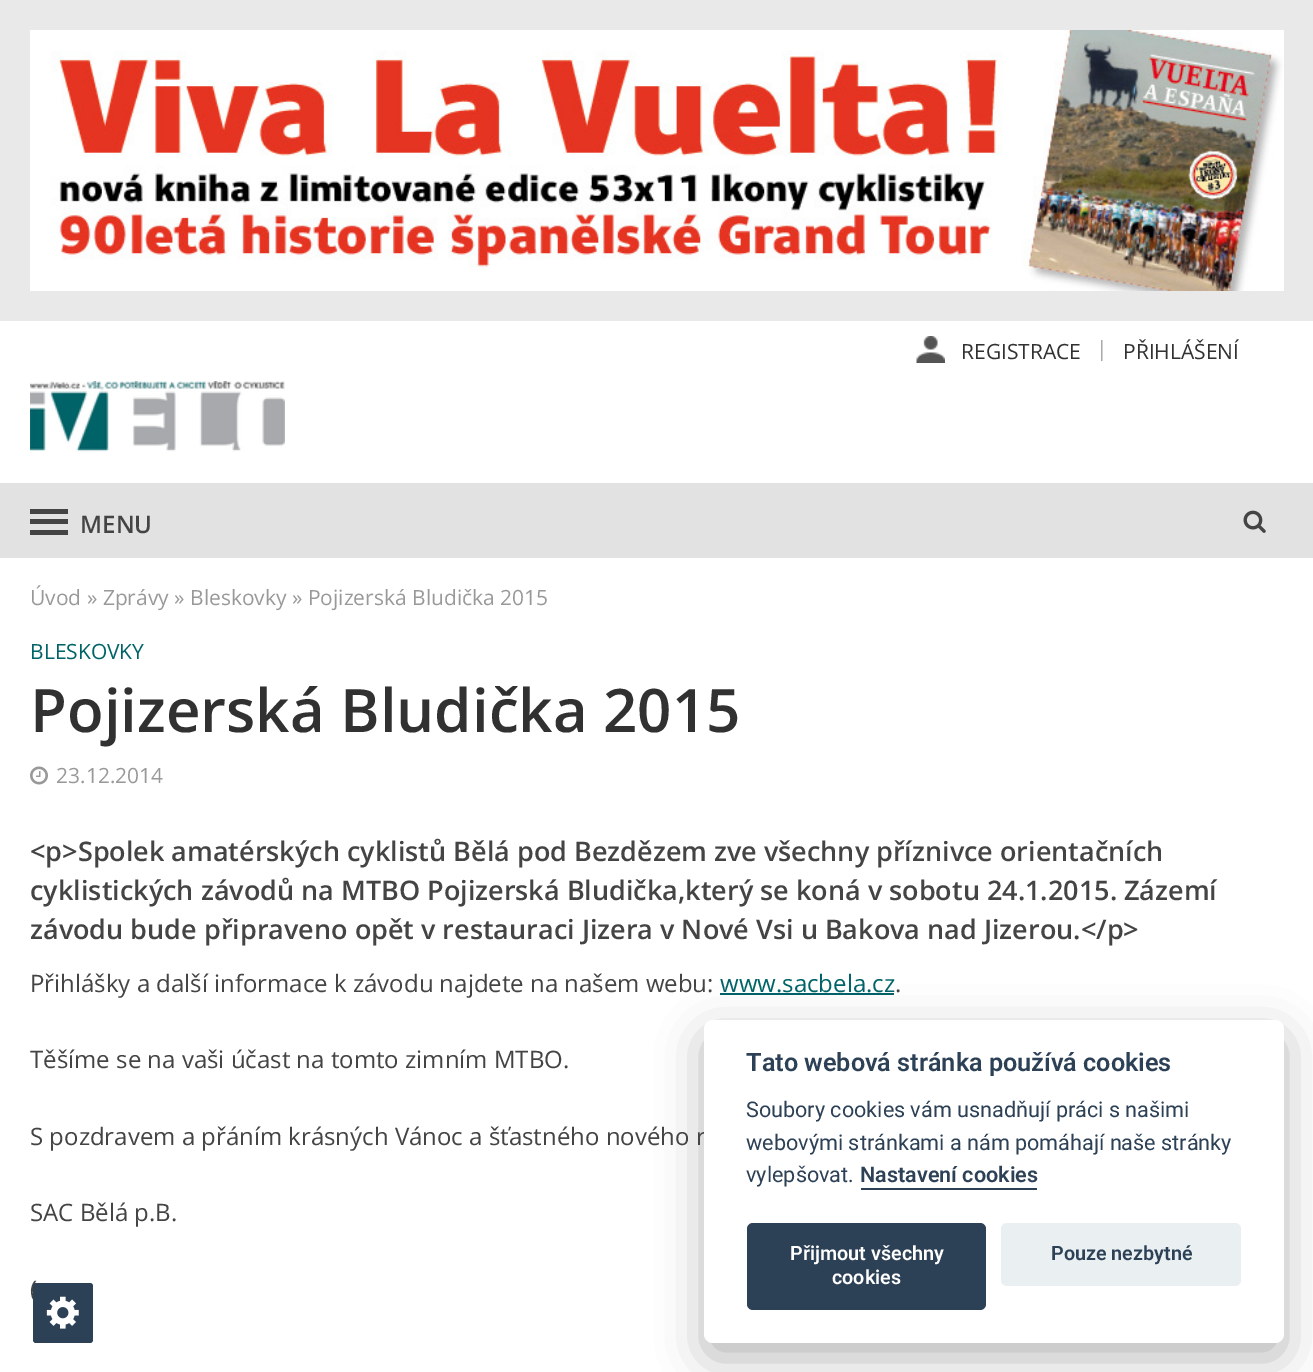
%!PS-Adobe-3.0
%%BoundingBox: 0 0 1313 1372
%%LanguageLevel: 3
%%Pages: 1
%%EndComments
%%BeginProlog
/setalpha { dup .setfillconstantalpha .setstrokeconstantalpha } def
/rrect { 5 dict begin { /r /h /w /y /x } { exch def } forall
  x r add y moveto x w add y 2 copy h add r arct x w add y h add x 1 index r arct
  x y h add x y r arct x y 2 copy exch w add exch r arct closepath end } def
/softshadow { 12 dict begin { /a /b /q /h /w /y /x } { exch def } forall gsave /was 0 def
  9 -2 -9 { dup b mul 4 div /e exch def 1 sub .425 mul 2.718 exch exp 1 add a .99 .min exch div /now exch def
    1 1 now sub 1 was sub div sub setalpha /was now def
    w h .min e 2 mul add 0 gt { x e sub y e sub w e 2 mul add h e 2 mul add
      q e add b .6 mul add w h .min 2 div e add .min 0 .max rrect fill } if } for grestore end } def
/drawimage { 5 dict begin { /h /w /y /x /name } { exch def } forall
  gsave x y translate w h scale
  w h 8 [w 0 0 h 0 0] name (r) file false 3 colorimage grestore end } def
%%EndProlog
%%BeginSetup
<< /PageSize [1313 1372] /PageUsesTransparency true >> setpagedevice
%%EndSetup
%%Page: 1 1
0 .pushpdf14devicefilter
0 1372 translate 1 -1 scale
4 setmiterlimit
0.914 setgray
0 0 1313 1372 rectfill
(images/1.raw) 30 30 1254 261 drawimage
1 setgray
0 321 1313 162 rectfill
(images/2.raw) 916 336 29 27 drawimage
(images/3.raw) 30 381 255 71 drawimage
0.886 setgray
0 483 1313 75 rectfill
0.267 setgray
30 509 38 5 rectfill
30 519 38 5 rectfill
30 530 38 5 rectfill
(images/4.raw) 1243 510 23 23 drawimage
1 setgray
0 558 1313 814 rectfill
(images/5.raw) 30 766 18 19 drawimage
0 0.388 0.404 setrgbcolor
720 993 174 2 rectfill
0.008 0.008 0.012 setrgbcolor
704 1035 580 323 9 22.5 0.28 softshadow
/OpenSans-Regular [21 0 0 -21 0 0] selectfont
0.196 0.192 0.192 setrgbcolor
961 359 moveto (REGISTRACE) show
0.667 setgray
1096 356 moveto (|) show
0.196 0.192 0.192 setrgbcolor
1123 359 moveto (PŘIHLÁŠENÍ) show
/OpenSans-SemiBold [24 0 0 -24 0 0] selectfont
0.267 setgray
80 533 moveto (MENU) show
/OpenSans-Regular [21 0 0 -21 0 0] selectfont
0.6 setgray
30 605 moveto (Úvod » Zprávy » Bleskovky » Pojizerská Bludička 2015) show
0 0.388 0.404 setrgbcolor
30 659 moveto (BLESKOVKY) show
/OpenSans-SemiBold [60 0 0 -60 0 0] selectfont
0.196 0.192 0.192 setrgbcolor
30 732 moveto (Pojizerská Bludička 2015) show
/OpenSans-Regular [21 0 0 -21 0 0] selectfont
0.6 setgray
56 783 moveto (23.12.2014) show
/OpenSans-SemiBold [27 0 0 -27 0 0] selectfont
0.267 setgray
30 861 moveto (<p>Spolek amatérských cyklistů Bělá pod Bezdězem zve všechny příznivce orientačních) show
30 900 moveto (cyklistických závodů na MTBO Pojizerská Bludička,který se koná v sobotu 24.1.2015. Zázemí) show
30 939 moveto (závodu bude připraveno opět v restauraci Jizera v Nové Vsi u Bakova nad Jizerou.</p>) show
/OpenSans-Regular [24 0 0 -24 0 0] selectfont
30 992 moveto (Přihlášky a další informace k závodu najdete na našem webu:) show
0 0.388 0.404 setrgbcolor
720 992 moveto (www.sacbela.cz) show
0.267 setgray
895 992 moveto (.) show
30 1068 moveto (Těšíme se na vaši účast na tomto zimním MTBO.) show
30 1145 moveto (S pozdravem a přáním krásných Vánoc a šťastného nového r) show
30 1221 moveto (SAC Bělá p.B.) show
30 1298 moveto (\() show
1 setgray
704 1020 580 323 9 rrect fill
/Roboto-SemiBold [25.25 0 0 -25.25 0 0] selectfont
0.176 0.255 0.337 setrgbcolor
746 1071 moveto (Tato webová stránka používá cookies) show
/Roboto-Regular [21.6 0 0 -21.6 0 0] selectfont
746 1117 moveto (Soubory cookies vám usnadňují práci s našimi) show
746 1150 moveto (webovými stránkami a nám pomáhají naše stránky) show
746 1182 moveto (vylepšovat.) show
/Roboto-SemiBold [21.6 0 0 -21.6 0 0] selectfont
860 1182 moveto (Nastavení cookies) show
861 1188 176 2 rectfill
747 1223 239 87 6 rrect fill
/Roboto-SemiBold [19.75 0 0 -19.75 0 0] selectfont
1 setgray
790 1260 moveto (Přijmout všechny) show
832 1284 moveto (cookies) show
0.918 0.937 0.949 setrgbcolor
1001 1223 240 63 6 rrect fill
0.176 0.255 0.337 setrgbcolor
1051 1260 moveto (Pouze nezbytné) show
33 1283 60 60 3 rrect fill
(images/6.raw) 46 1296 33 33 drawimage
.poppdf14devicefilter showpage
%%EOF
